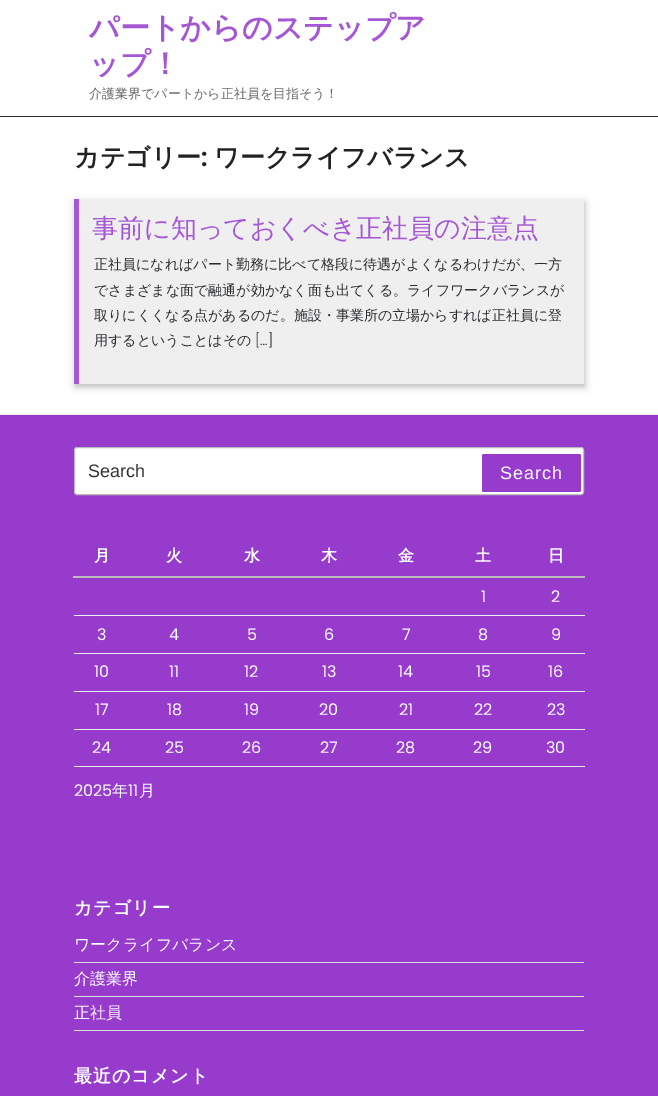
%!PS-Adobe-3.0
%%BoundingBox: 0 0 658 1096
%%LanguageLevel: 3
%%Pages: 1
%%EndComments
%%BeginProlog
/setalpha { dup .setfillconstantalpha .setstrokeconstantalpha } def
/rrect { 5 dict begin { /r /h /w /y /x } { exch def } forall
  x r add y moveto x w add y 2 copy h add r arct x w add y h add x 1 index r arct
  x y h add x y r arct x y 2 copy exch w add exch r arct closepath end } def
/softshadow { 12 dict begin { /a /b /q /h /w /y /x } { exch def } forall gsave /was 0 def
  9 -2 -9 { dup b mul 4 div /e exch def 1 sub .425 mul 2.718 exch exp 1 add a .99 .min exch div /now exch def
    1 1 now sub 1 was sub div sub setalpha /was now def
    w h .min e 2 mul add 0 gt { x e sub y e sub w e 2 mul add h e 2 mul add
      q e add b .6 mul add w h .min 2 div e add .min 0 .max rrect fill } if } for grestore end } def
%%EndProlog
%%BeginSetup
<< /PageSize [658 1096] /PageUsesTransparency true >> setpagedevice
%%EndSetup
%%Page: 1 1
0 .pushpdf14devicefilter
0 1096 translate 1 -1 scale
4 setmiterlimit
1 setgray
0 0 658 1096 rectfill
0.161 0.169 0.173 setrgbcolor
0 116 658 1 rectfill
0.733 setgray
75 202 510 185 0 3.5 1 softshadow
0.937 setgray
79 199 505 185 rectfill
0.647 0.337 0.831 setrgbcolor
74 199 5 185 rectfill
0.592 0.231 0.804 setrgbcolor
0 415 658 681 rectfill
0.933 setgray
0 414 658 1 rectfill
1 setgray
74.5 447.5 509 47 2.5 rrect gsave fill grestore
0.733 setgray
stroke
0.592 0.231 0.804 setrgbcolor
482 454 99 38 2 rrect fill
0.733 setgray
73 576 512 2 rectfill
0.933 setgray
74 615 511 1 rectfill
74 653 511 1 rectfill
74 691 511 1 rectfill
74 729 511 1 rectfill
74 766 511 1 rectfill
0.867 setgray
74 962 510 1 rectfill
74 996 510 1 rectfill
74 1030 510 1 rectfill
/WenQuanYiZenHei-Bold [30 0 0 -30 0 0] selectfont
0.647 0.337 0.831 setrgbcolor
89 38 moveto (パートからのステップア) show
89 74 moveto (ップ！) show
/WenQuanYiZenHei-Medium [13 0 0 -13 0 0] selectfont
0.4 setgray
89 98 moveto (介護業界でパートから正社員を目指そう！) show
/WenQuanYiZenHei-Bold [25 0 0 -25 0 0] selectfont
0.133 setgray
74 166 moveto (カテゴリー) show
/Poppins-SemiBold [25 0 0 -25 0 0] selectfont
201 166 moveto (:) show
/WenQuanYiZenHei-Bold [25 0 0 -25 0 0] selectfont
214 166 moveto (ワークライフバランス) show
/WenQuanYiZenHei-Medium [26 0 0 -26 0 0] selectfont
0.647 0.337 0.831 setrgbcolor
92 237 moveto (事前に知っておくべき正社員の注意点) show
/WenQuanYiZenHei-Medium [14 0 0 -14 0 0] selectfont
0.161 0.169 0.173 setrgbcolor
94 269 moveto (正社員になればパート勤務に比べて格段に待遇がよくなるわけだが、一方) show
94 295 moveto (でさまざまな面で融通が効かなく面も出てくる。ライフワークバランスが) show
94 320 moveto (取りにくくなる点があるのだ。施設・事業所の立場からすれば正社員に登) show
94 345 moveto (用するということはその) show
/Poppins-Light [14 0 0 -14 0 0] selectfont
255 345 moveto ([…]) show
/LiberationSans-Regular [18 0 0 -18 0 0] selectfont
0.2 setgray
88 477 moveto (Search) show
1 setgray
500 479 moveto 1 0 (Search) ashow
/WenQuanYiZenHei-Bold [16 0 0 -16 0 0] selectfont
94 561 moveto (月) show
166 561 moveto (火) show
244 561 moveto (水) show
321 561 moveto (木) show
398 561 moveto (金) show
475 561 moveto (土) show
548 561 moveto (日) show
/Poppins-Regular [16 0 0 -16 0 0] selectfont
481 602 moveto (1) show
551 602 moveto (2) show
97 640 moveto (3) show
169 640 moveto (4) show
247 640 moveto (5) show
324 640 moveto (6) show
402 640 moveto (7) show
478 640 moveto (8) show
551 640 moveto (9) show
94 677 moveto (10) show
169 677 moveto (11) show
244 677 moveto (12) show
322 677 moveto (13) show
398 677 moveto (14) show
476 677 moveto (15) show
548 677 moveto (16) show
95 715 moveto (17) show
167 715 moveto (18) show
244 715 moveto (19) show
319 715 moveto (20) show
399 715 moveto (21) show
474 715 moveto (22) show
547 715 moveto (23) show
92 753 moveto (24) show
165 753 moveto (25) show
242 753 moveto (26) show
320 753 moveto (27) show
396 753 moveto (28) show
473 753 moveto (29) show
546 753 moveto (30) show
74 796 moveto (2025) show
/WenQuanYiZenHei-Medium [16 0 0 -16 0 0] selectfont
112 796 moveto (年) show
/Poppins-Regular [16 0 0 -16 0 0] selectfont
128 796 moveto (11) show
/WenQuanYiZenHei-Medium [16 0 0 -16 0 0] selectfont
139 796 moveto (月) show
/WenQuanYiZenHei-Bold [18 0 0 -18 0 0] selectfont
74 914 moveto 1 0 (カテゴリー) ashow
/WenQuanYiZenHei-Medium [16 0 0 -16 0 0] selectfont
74 950 moveto (ワークライフバランス) show
74 984 moveto (介護業界) show
74 1018 moveto (正社員) show
/WenQuanYiZenHei-Bold [18 0 0 -18 0 0] selectfont
74 1082 moveto 1 0 (最近のコメント) ashow
.poppdf14devicefilter showpage
%%EOF
